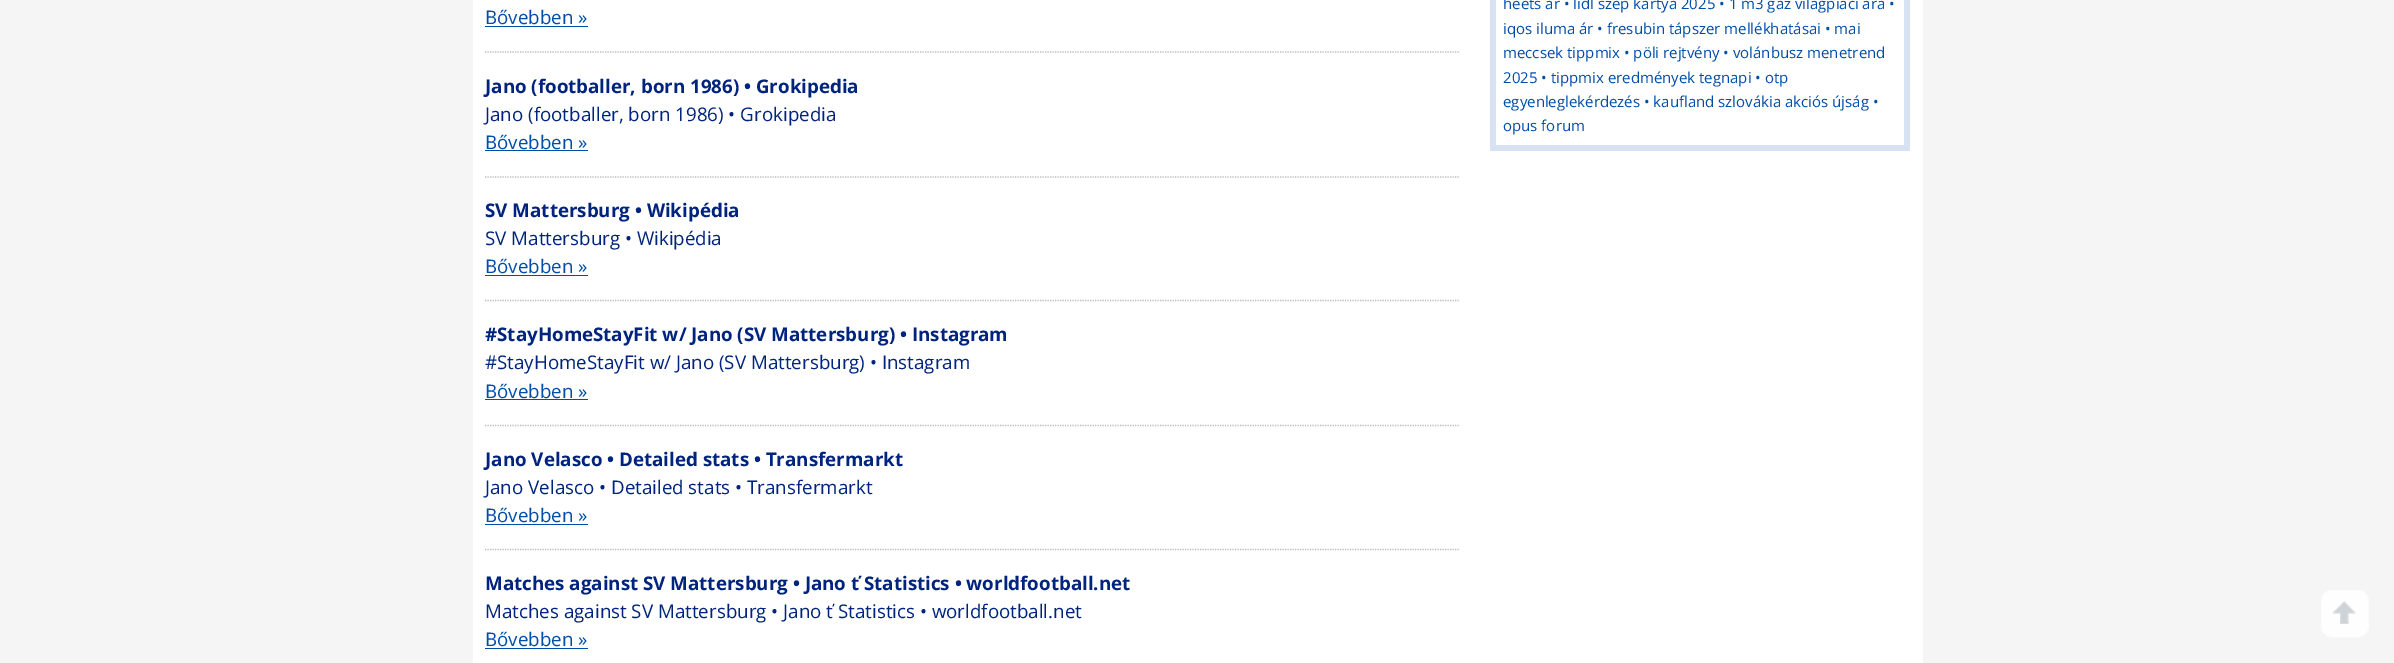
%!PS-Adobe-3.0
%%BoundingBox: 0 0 2394 663
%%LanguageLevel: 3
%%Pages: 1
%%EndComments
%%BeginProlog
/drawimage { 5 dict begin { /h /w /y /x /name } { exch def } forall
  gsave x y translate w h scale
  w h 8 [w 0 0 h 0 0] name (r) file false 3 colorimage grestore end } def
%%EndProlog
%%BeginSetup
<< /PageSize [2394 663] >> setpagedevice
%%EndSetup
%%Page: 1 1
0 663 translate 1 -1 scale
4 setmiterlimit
0.961 setgray
0 0 2394 663 rectfill
1 setgray
473 0 1450 663 rectfill
0 0.302 0.659 setrgbcolor
485 26 103 1 rectfill
0.733 setgray
1.2 setlinewidth
[1.25 1.25] 0 setdash
newpath 485 52 moveto 1460 52 lineto stroke
0 0.302 0.659 setrgbcolor
485 150 103 1 rectfill
0.733 setgray
newpath 485 177 moveto 1460 177 lineto stroke
0 0.302 0.659 setrgbcolor
485 275 103 1 rectfill
0.733 setgray
newpath 485 300.5 moveto 1460 300.5 lineto stroke
0 0.302 0.659 setrgbcolor
485 399 103 1 rectfill
0.733 setgray
newpath 485 425.5 moveto 1460 425.5 lineto stroke
0 0.302 0.659 setrgbcolor
485 524 103 1 rectfill
0.733 setgray
newpath 485 549.5 moveto 1460 549.5 lineto stroke
0 0.302 0.659 setrgbcolor
485 648 103 1 rectfill
0.843 0.89 0.949 setrgbcolor
1490 0 420 151 rectfill
1 setgray
1496 0 408 145 rectfill
(images/1.raw) 2321 590 48 48 drawimage
/OpenSans-Regular [18.75 0 0 -18.75 0 0] selectfont
0 0.302 0.659 setrgbcolor
485 24 moveto (Bővebben ») show
/OpenSans-Bold [18.75 0 0 -18.75 0 0] selectfont
0 0.141 0.49 setrgbcolor
485 93 moveto (Jano \(footballer, born 1986\) • Grokipedia) show
/OpenSans-Regular [18.75 0 0 -18.75 0 0] selectfont
485 121 moveto (Jano \(footballer, born 1986\) • Grokipedia) show
0 0.302 0.659 setrgbcolor
485 149 moveto (Bővebben ») show
/OpenSans-Bold [18.75 0 0 -18.75 0 0] selectfont
0 0.141 0.49 setrgbcolor
485 217 moveto (SV Mattersburg • Wikipédia) show
/OpenSans-Regular [18.75 0 0 -18.75 0 0] selectfont
485 245 moveto (SV Mattersburg • Wikipédia) show
0 0.302 0.659 setrgbcolor
485 273 moveto (Bővebben ») show
/OpenSans-Bold [18.75 0 0 -18.75 0 0] selectfont
0 0.141 0.49 setrgbcolor
485 341 moveto (#StayHomeStayFit w/ Jano \(SV Mattersburg\) • Instagram) show
/OpenSans-Regular [18.75 0 0 -18.75 0 0] selectfont
485 369 moveto (#StayHomeStayFit w/ Jano \(SV Mattersburg\) • Instagram) show
0 0.302 0.659 setrgbcolor
485 398 moveto (Bővebben ») show
/OpenSans-Bold [18.75 0 0 -18.75 0 0] selectfont
0 0.141 0.49 setrgbcolor
485 466 moveto (Jano Velasco • Detailed stats • Transfermarkt) show
/OpenSans-Regular [18.75 0 0 -18.75 0 0] selectfont
485 494 moveto (Jano Velasco • Detailed stats • Transfermarkt) show
0 0.302 0.659 setrgbcolor
485 522 moveto (Bővebben ») show
/OpenSans-Bold [18.75 0 0 -18.75 0 0] selectfont
0 0.141 0.49 setrgbcolor
485 590 moveto (Matches against SV Mattersburg • Jano ť Statistics • worldfootball.net) show
/OpenSans-Regular [18.75 0 0 -18.75 0 0] selectfont
485 618 moveto (Matches against SV Mattersburg • Jano ť Statistics • worldfootball.net) show
0 0.302 0.659 setrgbcolor
485 646 moveto (Bővebben ») show
/OpenSans-Regular [15 0 0 -15 0 0] selectfont
1503 9 moveto (heets ár • lidl szép kártya 2025 • 1 m3 gáz világpiaci ára •) show
1503 34 moveto (iqos iluma ár • fresubin tápszer mellékhatásai • mai) show
1503 58 moveto (meccsek tippmix • pöli rejtvény • volánbusz menetrend) show
1503 83 moveto (2025 • tippmix eredmények tegnapi • otp) show
1503 107 moveto (egyenleglekérdezés • kaufland szlovákia akciós újság •) show
1503 131 moveto (opus forum) show
showpage
%%EOF
